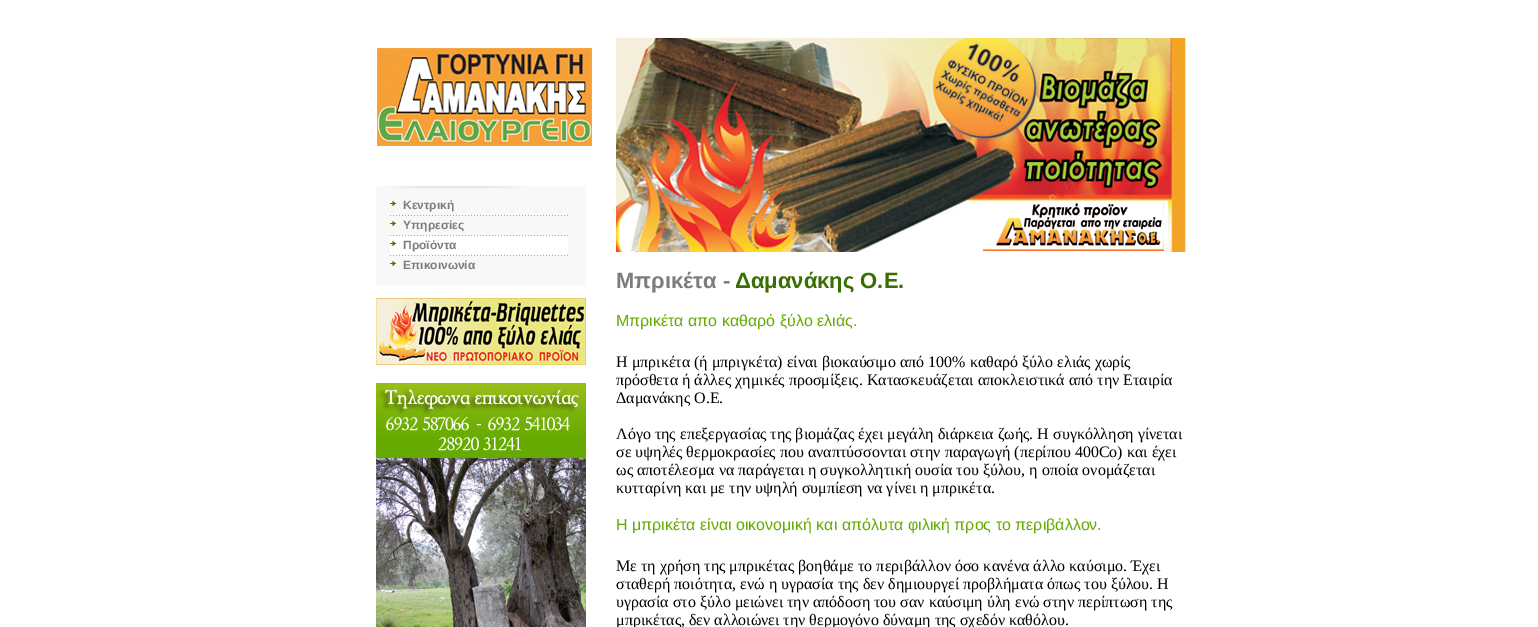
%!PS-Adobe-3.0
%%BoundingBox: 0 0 1538 627
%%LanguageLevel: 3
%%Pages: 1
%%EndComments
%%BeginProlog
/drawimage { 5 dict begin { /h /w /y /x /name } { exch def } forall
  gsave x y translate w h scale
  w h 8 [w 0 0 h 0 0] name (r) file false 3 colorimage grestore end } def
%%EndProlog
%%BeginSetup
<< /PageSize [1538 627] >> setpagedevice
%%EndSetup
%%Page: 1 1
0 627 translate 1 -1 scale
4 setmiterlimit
1 setgray
0 0 1538 627 rectfill
0.973 setgray
376 186 210 100 rectfill
(images/1.raw) 388 186 136 3 drawimage
(images/2.raw) 390 215 178 1 drawimage
(images/3.raw) 390 201 6 5 drawimage
(images/2.raw) 390 235 178 1 drawimage
(images/3.raw) 390 221 6 5 drawimage
(images/2.raw) 390 255 178 1 drawimage
1 setgray
390 236 178 19 rectfill
(images/3.raw) 390 241 6 5 drawimage
(images/3.raw) 390 261 6 5 drawimage
(images/4.raw) 376 298 210 67 drawimage
(images/5.raw) 377 48 215 98 drawimage
(images/6.raw) 616 38 570 214 drawimage
(images/7.raw) 376 383 210 75 drawimage
(images/8.raw) 376 458 210 169 drawimage
/LiberationSans-Bold [12 0 0 -12 0 0] selectfont
0.486 setgray
403 209 moveto (Κεντρική) show
403 229 moveto (Υπηρεσίες) show
403 249 moveto (Προϊόντα) show
403 269 moveto (Επικοινωνία) show
/LiberationSans-Bold [22 0 0 -22 0 0] selectfont
616 288 moveto (Μπρικέτα -) show
0.22 0.435 0 setrgbcolor
735 288 moveto (Δαμανάκης Ο.Ε.) show
/LiberationSans-Regular [16 0 0 -16 0 0] selectfont
0.396 0.667 0.004 setrgbcolor
616 326 moveto (Μπρικέτα απο καθαρό ξύλο ελιάς.) show
/LiberationSerif-Regular [16 0 0 -16 0 0] selectfont
0 setgray
616 367 moveto (Η μπρικέτα \(ή μπριγκέτα\) είναι βιοκαύσιμο από 100% καθαρό ξύλο ελιάς χωρίς) show
616 385 moveto (πρόσθετα ή άλλες χημικές προσμίξεις. Κατασκευάζεται αποκλειστικά από την Εταιρία) show
616 403 moveto (Δαμανάκης Ο.Ε.) show
616 439 moveto (Λόγο της επεξεργασίας της βιομάζας έχει μεγάλη διάρκεια ζωής. Η συγκόλληση γίνεται) show
616 457 moveto (σε υψηλές θερμοκρασίες που αναπτύσσονται στην παραγωγή \(περίπου 400Co\) και έχει) show
616 475 moveto (ως αποτέλεσμα να παράγεται η συγκολλητική ουσία του ξύλου, η οποία ονομάζεται) show
616 493 moveto (κυτταρίνη και με την υψηλή συμπίεση να γίνει η μπρικέτα.) show
/LiberationSans-Regular [16 0 0 -16 0 0] selectfont
0.396 0.667 0.004 setrgbcolor
616 530 moveto (Η μπρικέτα είναι οικονομική και απόλυτα φιλική προς το περιβάλλον.) show
/LiberationSerif-Regular [16 0 0 -16 0 0] selectfont
0 setgray
616 571 moveto (Με τη χρήση της μπρικέτας βοηθάμε το περιβάλλον όσο κανένα άλλο καύσιμο. Έχει) show
616 589 moveto (σταθερή ποιότητα, ενώ η υγρασία της δεν δημιουργεί προβλήματα όπως του ξύλου. Η) show
616 607 moveto (υγρασία στο ξύλο μειώνει την απόδοση του σαν καύσιμη ύλη ενώ στην περίπτωση της) show
616 625 moveto (μπρικέτας, δεν αλλοιώνει την θερμογόνο δύναμη της σχεδόν καθόλου.) show
showpage
%%EOF
